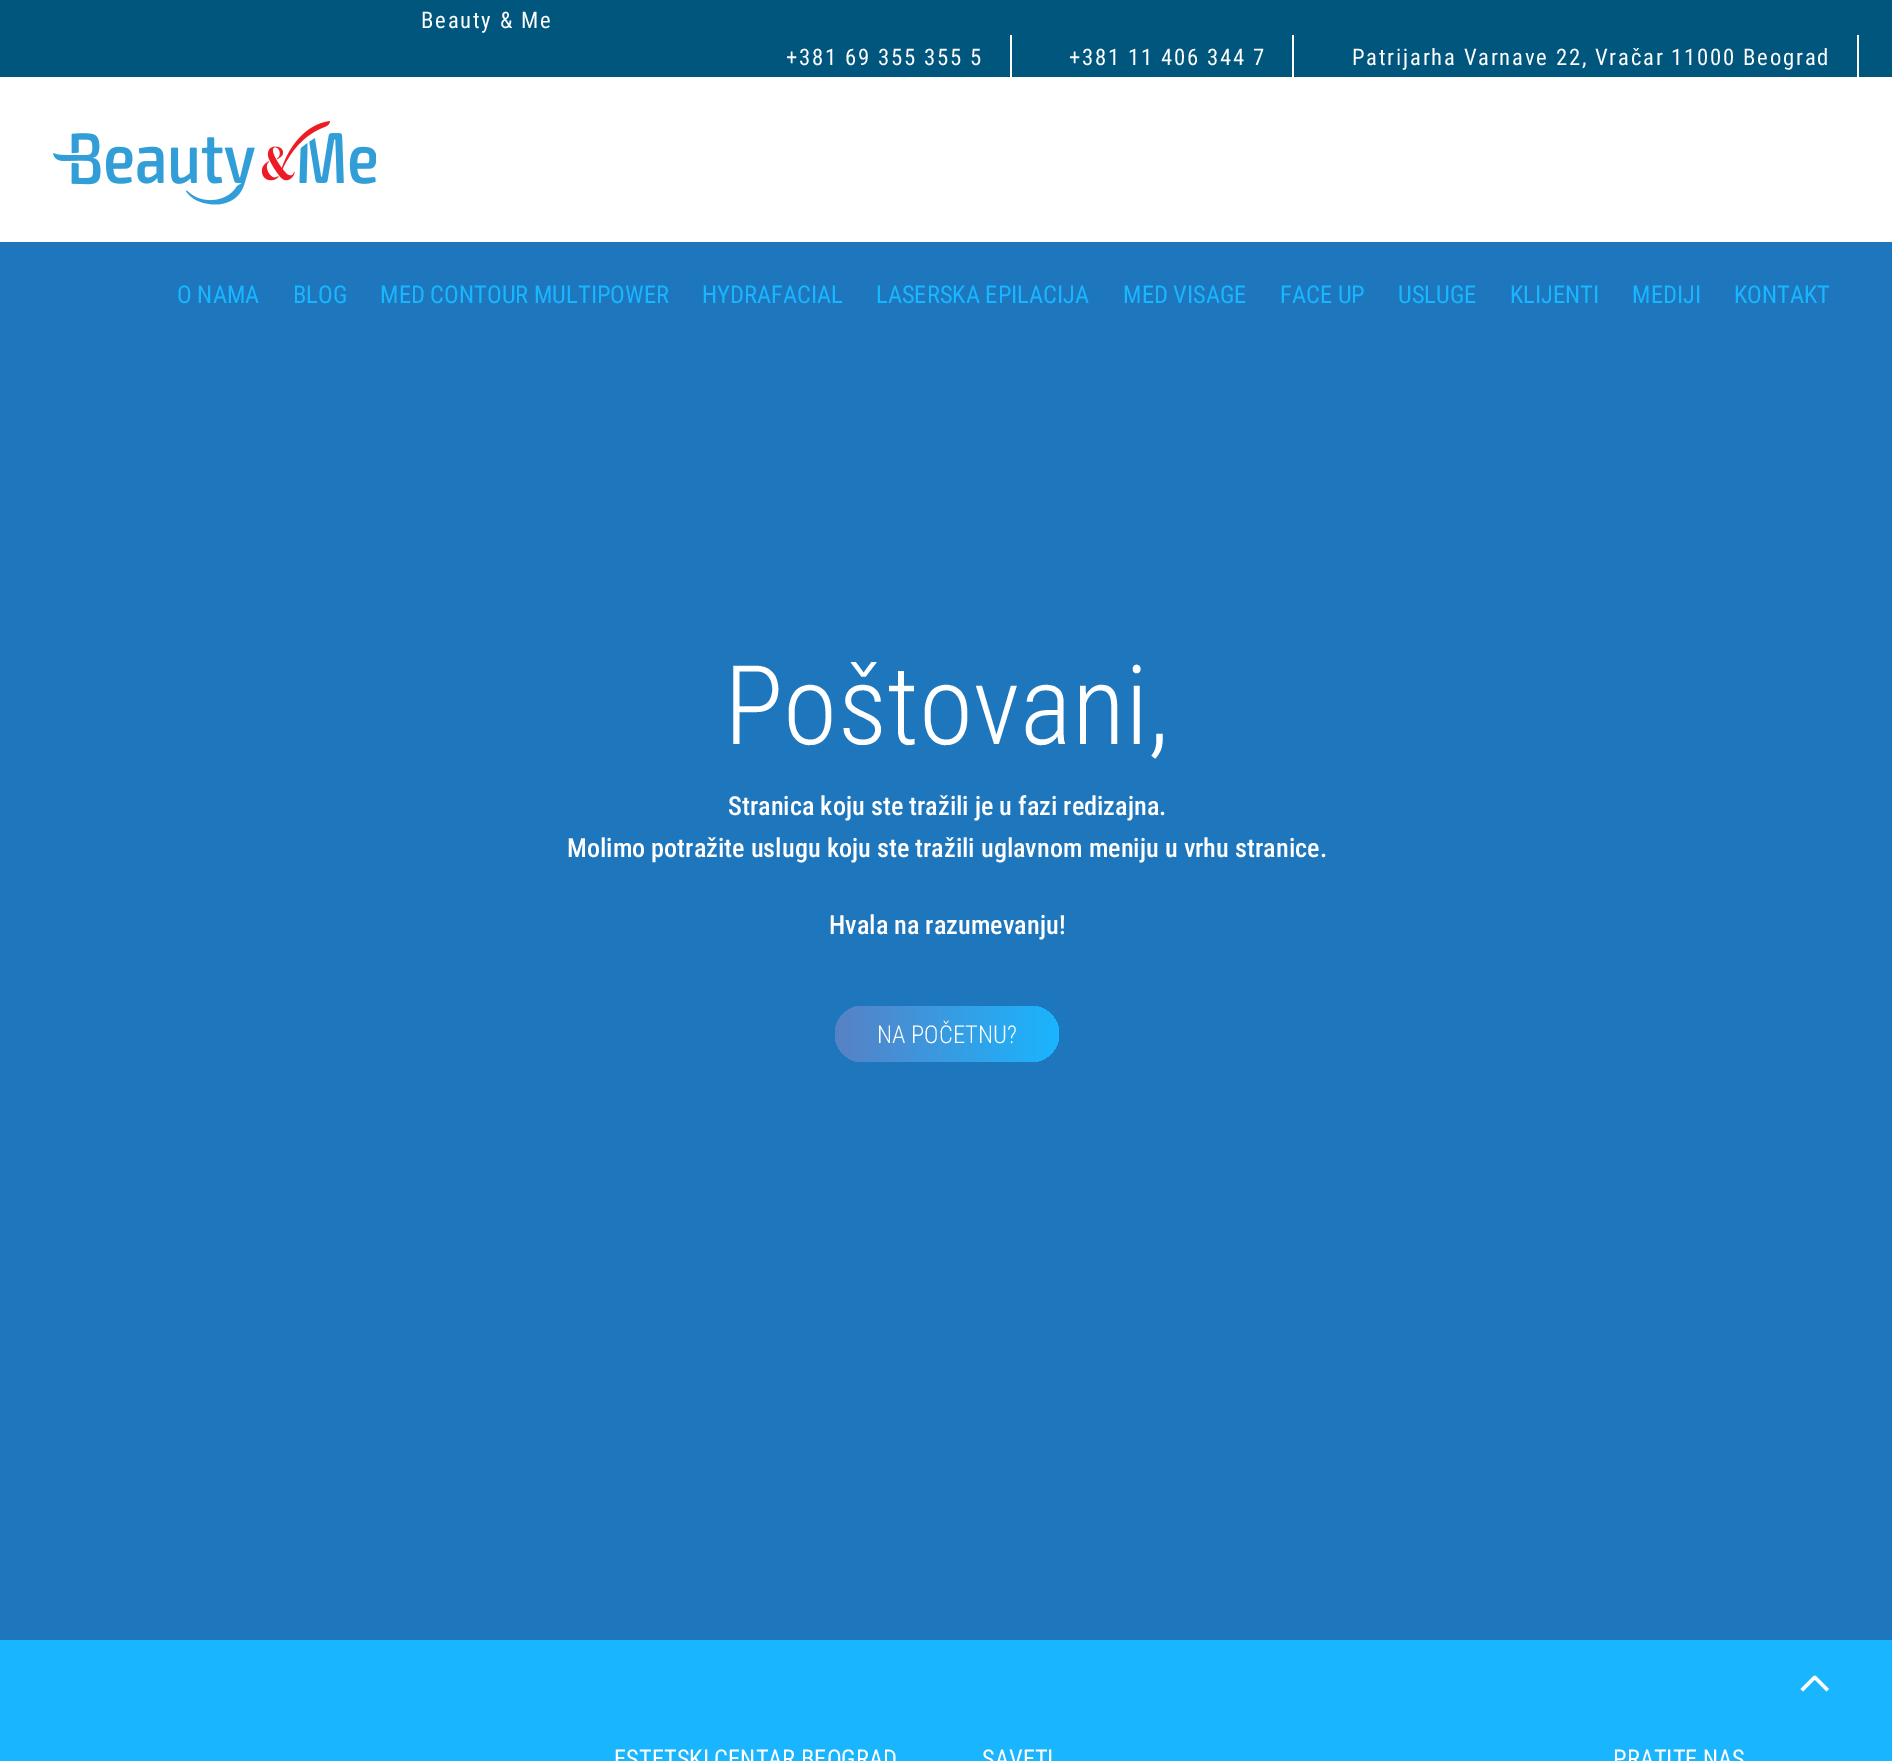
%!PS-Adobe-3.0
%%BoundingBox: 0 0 1892 1761
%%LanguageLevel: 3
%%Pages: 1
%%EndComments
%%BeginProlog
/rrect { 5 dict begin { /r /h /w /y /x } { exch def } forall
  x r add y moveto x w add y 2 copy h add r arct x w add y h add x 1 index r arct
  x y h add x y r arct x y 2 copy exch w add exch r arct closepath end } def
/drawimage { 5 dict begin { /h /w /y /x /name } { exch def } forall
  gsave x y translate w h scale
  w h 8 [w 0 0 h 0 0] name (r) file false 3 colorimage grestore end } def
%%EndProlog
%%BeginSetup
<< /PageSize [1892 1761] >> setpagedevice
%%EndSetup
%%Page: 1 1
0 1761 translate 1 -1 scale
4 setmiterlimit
0.118 0.463 0.741 setrgbcolor
0 0 1892 1761 rectfill
1 setgray
0 77 1892 165 rectfill
0.004 0.337 0.49 setrgbcolor
0 0 1892 77 rectfill
1 setgray
1010 35 2 42 rectfill
1292 35 2 42 rectfill
1857 35 2 42 rectfill
(images/1.raw) 53 121 323 84 drawimage
gsave 835 1006 224 56 28 rrect clip newpath
<< /ShadingType 2 /ColorSpace /DeviceRGB /Coords [387 1034 1059 1034] /Extend [true true] /Function << /FunctionType 2 /Domain [0 1] /C0 [0.843 0.094 0.329] /C1 [0.098 0.71 0.996] /N 1 >> >> shfill grestore
0.098 0.71 0.996 setrgbcolor
0 1640 1892 121 rectfill
1 setgray
newpath 1815.5 1675.5 moveto 1829 1689 lineto 1826.5 1691.5 lineto 1813 1678 lineto closepath fill
newpath 1800.5 1689 moveto 1814 1675.5 lineto 1816.5 1678 lineto 1803 1691.5 lineto closepath fill
/RobotoCondensed-Regular [22.75 0 0 -22.75 0 0] selectfont
421 28 moveto 1.75 0 (Beauty & Me) ashow
786 65 moveto 1.75 0 (+381 69 355 355 5) ashow
1069 65 moveto 1.75 0 (+381 11 406 344 7) ashow
1352 65 moveto 1.75 0 (Patrijarha Varnave 22, Vračar 11000 Beograd) ashow
/RobotoCondensed-Regular [24.5 0 0 -24.5 0 0] selectfont
0.098 0.71 0.996 setrgbcolor
177 303 moveto (O NAMA) show
293 303 moveto (BLOG) show
380 303 moveto (MED CONTOUR MULTIPOWER) show
702 303 moveto (HYDRAFACIAL) show
876 303 moveto (LASERSKA EPILACIJA) show
1123 303 moveto (MED VISAGE) show
1280 303 moveto (FACE UP) show
1398 303 moveto (USLUGE) show
1510 303 moveto (KLIJENTI) show
1632 303 moveto (MEDIJI) show
1734 303 moveto (KONTAKT) show
/RobotoCondensed-Light [110.25 0 0 -110.25 0 0] selectfont
1 setgray
724 744 moveto (Poštovani,) show
/RobotoCondensed-Medium [26.25 0 0 -26.25 0 0] selectfont
728 815 moveto (Stranica koju ste tražili je u fazi redizajna.) show
567 857 moveto (Molimo potražite uslugu koju ste tražili uglavnom meniju u vrhu stranice.) show
829 934 moveto (Hvala na razumevanju!) show
/RobotoCondensed-Light [24.5 0 0 -24.5 0 0] selectfont
877 1043 moveto (NA POČETNU?) show
/RobotoCondensed-Regular [24.5 0 0 -24.5 0 0] selectfont
614 1767 moveto (ESTETSKI CENTAR BEOGRAD) show
982 1767 moveto (SAVETI) show
1613 1767 moveto (PRATITE NAS) show
showpage
%%EOF
